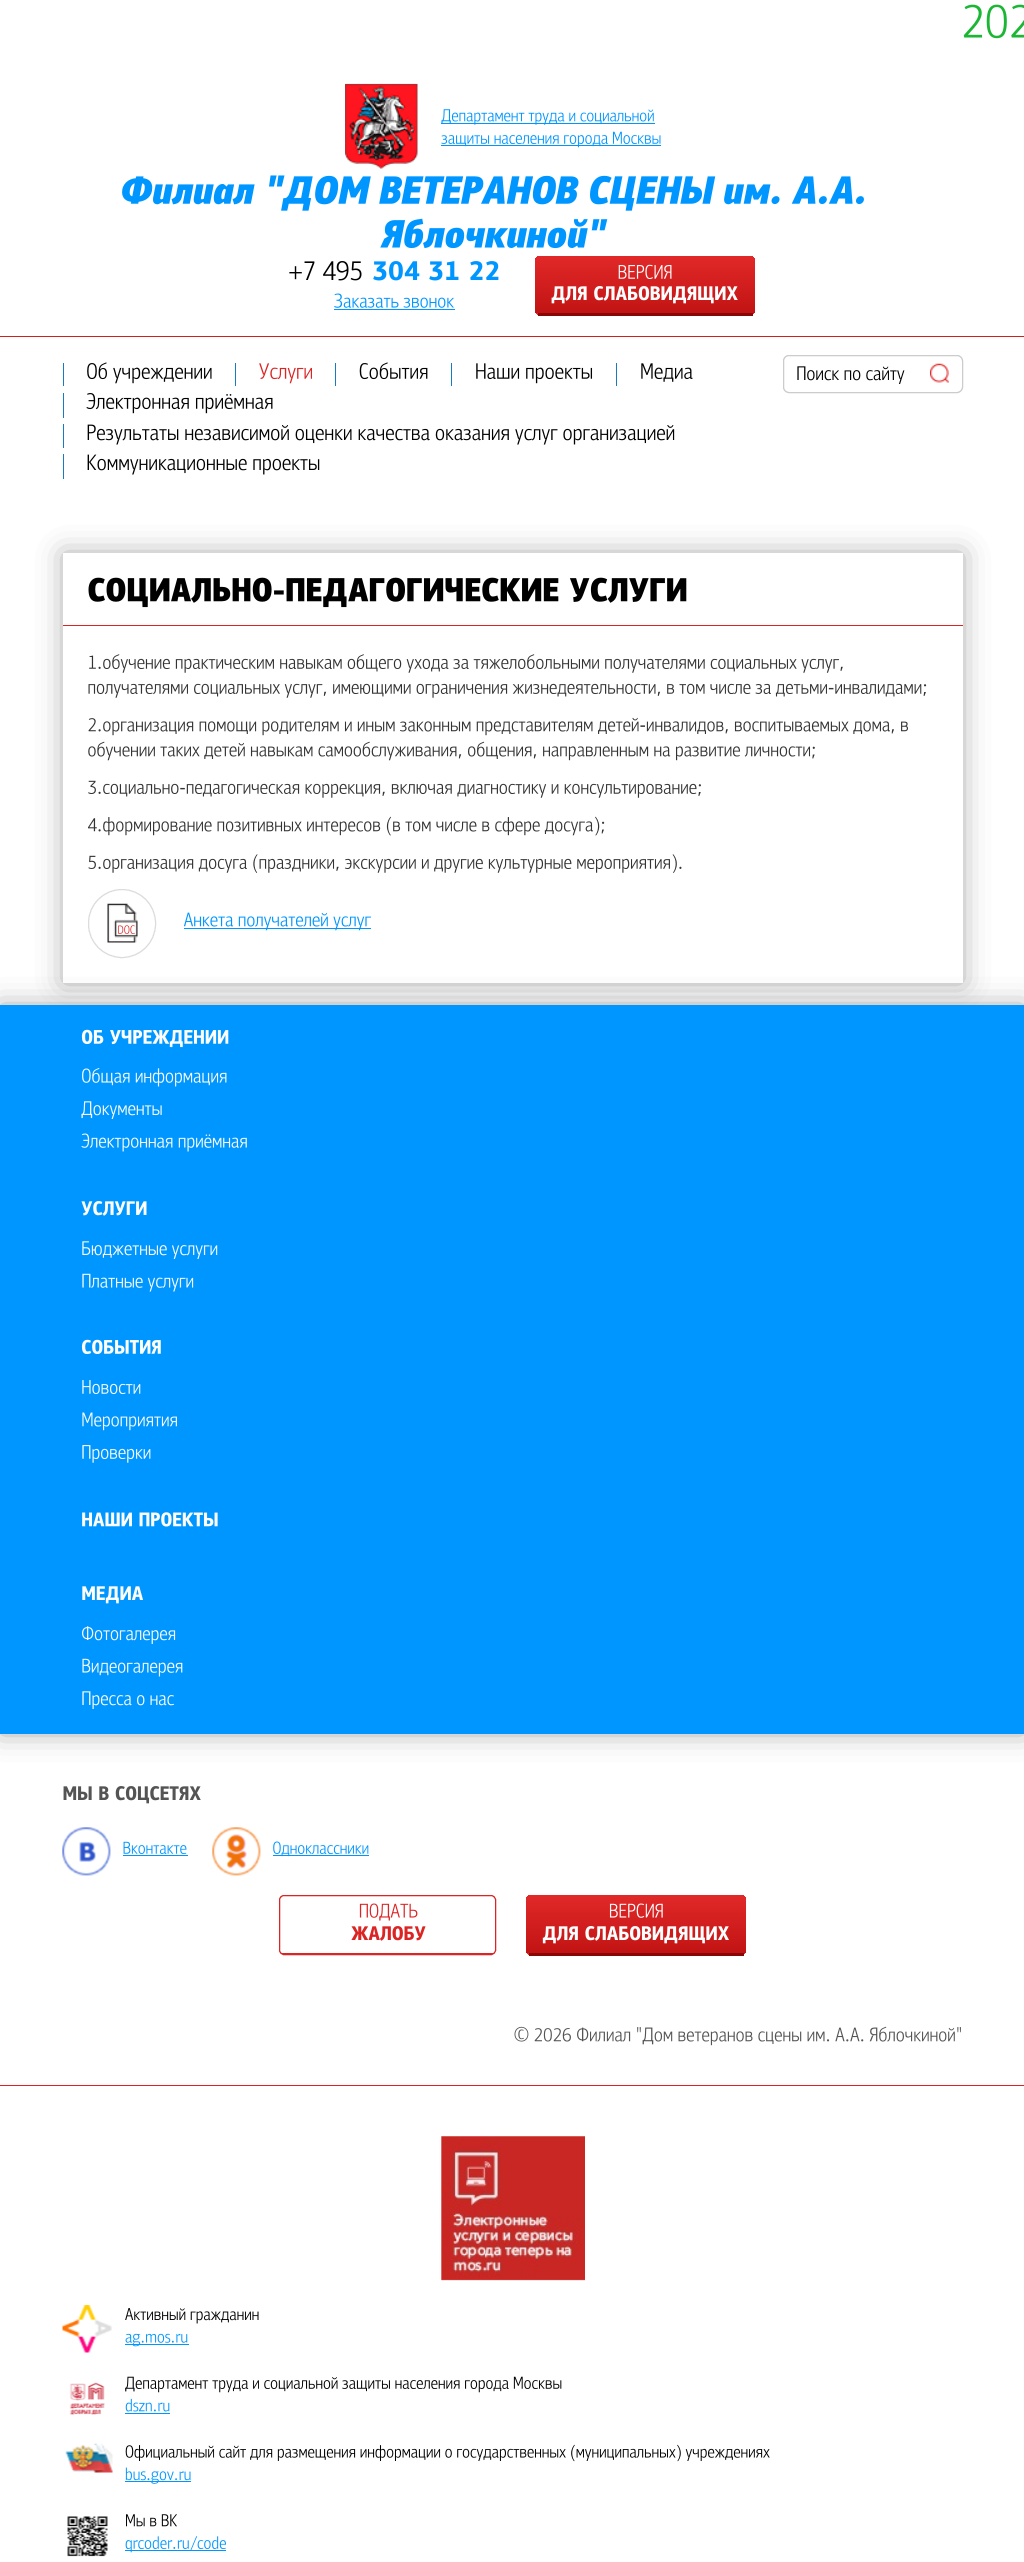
%!PS-Adobe-3.0
%%BoundingBox: 0 0 1024 2562
%%LanguageLevel: 3
%%Pages: 1
%%EndComments
%%BeginProlog
/setalpha { dup .setfillconstantalpha .setstrokeconstantalpha } def
/rrect { 5 dict begin { /r /h /w /y /x } { exch def } forall
  x r add y moveto x w add y 2 copy h add r arct x w add y h add x 1 index r arct
  x y h add x y r arct x y 2 copy exch w add exch r arct closepath end } def
/softshadow { 12 dict begin { /a /b /q /h /w /y /x } { exch def } forall gsave /was 0 def
  9 -2 -9 { dup b mul 4 div /e exch def 1 sub .425 mul 2.718 exch exp 1 add a .99 .min exch div /now exch def
    1 1 now sub 1 was sub div sub setalpha /was now def
    w h .min e 2 mul add 0 gt { x e sub y e sub w e 2 mul add h e 2 mul add
      q e add b .6 mul add w h .min 2 div e add .min 0 .max rrect fill } if } for grestore end } def
/drawimage { 5 dict begin { /h /w /y /x /name } { exch def } forall
  gsave x y translate w h scale
  w h 8 [w 0 0 h 0 0] name (r) file false 3 colorimage grestore end } def
%%EndProlog
%%BeginSetup
<< /PageSize [1024 2562] /PageUsesTransparency true >> setpagedevice
%%EndSetup
%%Page: 1 1
0 .pushpdf14devicefilter
0 2562 translate 1 -1 scale
4 setmiterlimit
1 setgray
0 0 1024 2562 rectfill
(images/1.raw) 963 4 61 35 drawimage
(images/2.raw) 345 83 73 86 drawimage
0 0.588 1 setrgbcolor
441 123 214 1 rectfill
(images/3.raw) 441 109 213 16 drawimage
441 145 220 1 rectfill
(images/4.raw) 441 131 220 17 drawimage
(images/5.raw) 122 175 742 36 drawimage
(images/6.raw) 380 218 228 31 drawimage
(images/7.raw) 289 261 73 20 drawimage
(images/8.raw) 373 261 126 20 drawimage
(images/9.raw) 334 293 120 15 drawimage
334 309 121 1 rectfill
gsave
535 256 220 59 5 rrect clip newpath
gsave newpath 540 256 moveto 750 256 lineto 753 256 755 258 755 261 curveto 755 313 lineto 535 313 lineto 535 261 lineto 535 258 537 256 540 256 curveto closepath clip newpath
<< /ShadingType 2 /ColorSpace /DeviceRGB /Coords [645 256 645 313] /Extend [true true] /Function << /FunctionType 2 /Domain [0 1] /C0 [0.886 0.161 0.161] /C1 [0.761 0.078 0.078] /N 1 >> >> shfill grestore
gsave newpath 535 313 moveto 755 313 lineto 755 315 lineto 535 315 lineto closepath clip newpath
<< /ShadingType 2 /ColorSpace /DeviceRGB /Coords [645 313 645 369] /Extend [true true] /Function << /FunctionType 2 /Domain [0 1] /C0 [0.886 0.161 0.161] /C1 [0.761 0.078 0.078] /N 1 >> >> shfill grestore
grestore
0.537 0.027 0.027 setrgbcolor
538 313 215 3 rectfill
(images/10.raw) 618 264 54 15 drawimage
(images/11.raw) 551 286 187 18 drawimage
0.82 0.118 0.118 setrgbcolor
0 336 1024 1 rectfill
0.098 0.482 0.749 setrgbcolor
63 363 1 23 rectfill
(images/12.raw) 87 362 125 22 drawimage
235 363 1 23 rectfill
(images/13.raw) 259 363 53 21 drawimage
335 363 1 23 rectfill
(images/14.raw) 359 362 69 18 drawimage
451 363 1 23 rectfill
(images/15.raw) 476 363 117 21 drawimage
616 363 1 23 rectfill
(images/16.raw) 641 363 52 19 drawimage
63 393 1 25 rectfill
(images/17.raw) 86 393 187 21 drawimage
63 424 1 24 rectfill
(images/18.raw) 87 424 588 21 drawimage
63 454 1 25 rectfill
(images/19.raw) 87 454 233 21 drawimage
0.8 setgray
783.5 355.5 179 37 5.5 rrect stroke
(images/20.raw) 797 366 108 18 drawimage
(images/21.raw) 930 363 19 20 drawimage
0 setgray
63 553 900 430 0 12.5 0.32 softshadow
1 setgray
63 553 900 430 rectfill
0.859 0.141 0.141 setrgbcolor
63 625 900 1 rectfill
(images/22.raw) 88 577 599 31 drawimage
(images/23.raw) 89 654 754 19 drawimage
(images/24.raw) 88 683 839 15 drawimage
(images/25.raw) 88 717 820 19 drawimage
(images/26.raw) 88 741 727 20 drawimage
(images/27.raw) 88 780 613 18 drawimage
(images/28.raw) 88 816 517 20 drawimage
(images/29.raw) 88 854 594 19 drawimage
(images/30.raw) 107 903 31 40 drawimage
0.863 setgray
88.5 889.5 67 68 33.5 rrect stroke
0 0.588 1 setrgbcolor
184 928 187 1 rectfill
(images/31.raw) 183 912 188 19 drawimage
(images/32.raw) 118 925 17 9 drawimage
0 setgray
0 1005 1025 729 0 12.5 0.32 softshadow
0 0.588 1 setrgbcolor
0 1005 1024 729 rectfill
(images/33.raw) 81 1029 148 19 drawimage
(images/34.raw) 82 1068 145 19 drawimage
(images/35.raw) 81 1101 81 18 drawimage
(images/36.raw) 81 1133 166 19 drawimage
(images/37.raw) 81 1201 66 15 drawimage
(images/38.raw) 82 1241 136 18 drawimage
(images/39.raw) 82 1273 112 19 drawimage
(images/40.raw) 81 1339 80 15 drawimage
(images/41.raw) 82 1380 59 14 drawimage
(images/42.raw) 82 1412 95 19 drawimage
(images/43.raw) 82 1445 69 18 drawimage
(images/44.raw) 82 1512 136 15 drawimage
(images/45.raw) 82 1586 61 18 drawimage
(images/46.raw) 82 1626 94 18 drawimage
(images/47.raw) 82 1658 101 19 drawimage
(images/48.raw) 82 1691 92 18 drawimage
(images/49.raw) 63 1786 138 18 drawimage
(images/50.raw) 62 1827 49 49 drawimage
(images/51.raw) 123 1841 64 13 drawimage
123 1855 65 1 rectfill
(images/52.raw) 212 1827 49 49 drawimage
273 1855 96 1 rectfill
(images/53.raw) 273 1841 96 16 drawimage
0.859 0.141 0.141 setrgbcolor
279.5 1895.5 216 59 4.5 rrect stroke
281 1953 213 1 rectfill
(images/54.raw) 359 1903 59 18 drawimage
(images/55.raw) 351 1926 75 15 drawimage
gsave
526 1895 220 60 5 rrect clip newpath
gsave newpath 531 1895 moveto 741 1895 lineto 744 1895 746 1897 746 1900 curveto 746 1953 lineto 526 1953 lineto 526 1900 lineto 526 1897 528 1895 531 1895 curveto closepath clip newpath
<< /ShadingType 2 /ColorSpace /DeviceRGB /Coords [636 1895 636 1953] /Extend [true true] /Function << /FunctionType 2 /Domain [0 1] /C0 [0.886 0.161 0.161] /C1 [0.761 0.078 0.078] /N 1 >> >> shfill grestore
gsave newpath 526 1953 moveto 746 1953 lineto 746 1955 lineto 526 1955 lineto closepath clip newpath
<< /ShadingType 2 /ColorSpace /DeviceRGB /Coords [636 1953 636 2010] /Extend [true true] /Function << /FunctionType 2 /Domain [0 1] /C0 [0.886 0.161 0.161] /C1 [0.761 0.078 0.078] /N 1 >> >> shfill grestore
grestore
0.537 0.027 0.027 setrgbcolor
529 1953 215 3 rectfill
(images/56.raw) 609 1903 54 15 drawimage
(images/57.raw) 542 1926 187 18 drawimage
(images/58.raw) 514 2026 57 16 drawimage
(images/59.raw) 577 2026 384 20 drawimage
0.859 0.141 0.141 setrgbcolor
0 2085 1024 1 rectfill
(images/60.raw) 441 2136 144 145 drawimage
(images/61.raw) 62 2305 50 48 drawimage
(images/62.raw) 125 2308 134 16 drawimage
0 0.588 1 setrgbcolor
125 2344 64 1 rectfill
(images/63.raw) 125 2333 63 14 drawimage
(images/64.raw) 69 2382 36 33 drawimage
(images/65.raw) 125 2376 437 17 drawimage
(images/66.raw) 125 2398 45 14 drawimage
125 2413 45 1 rectfill
(images/67.raw) 65 2443 48 30 drawimage
(images/68.raw) 125 2444 645 18 drawimage
125 2481 66 1 rectfill
(images/69.raw) 125 2467 66 17 drawimage
(images/70.raw) 67 2516 41 41 drawimage
(images/71.raw) 126 2514 51 13 drawimage
125 2550 101 1 rectfill
(images/72.raw) 125 2536 101 17 drawimage
.poppdf14devicefilter showpage
%%EOF
